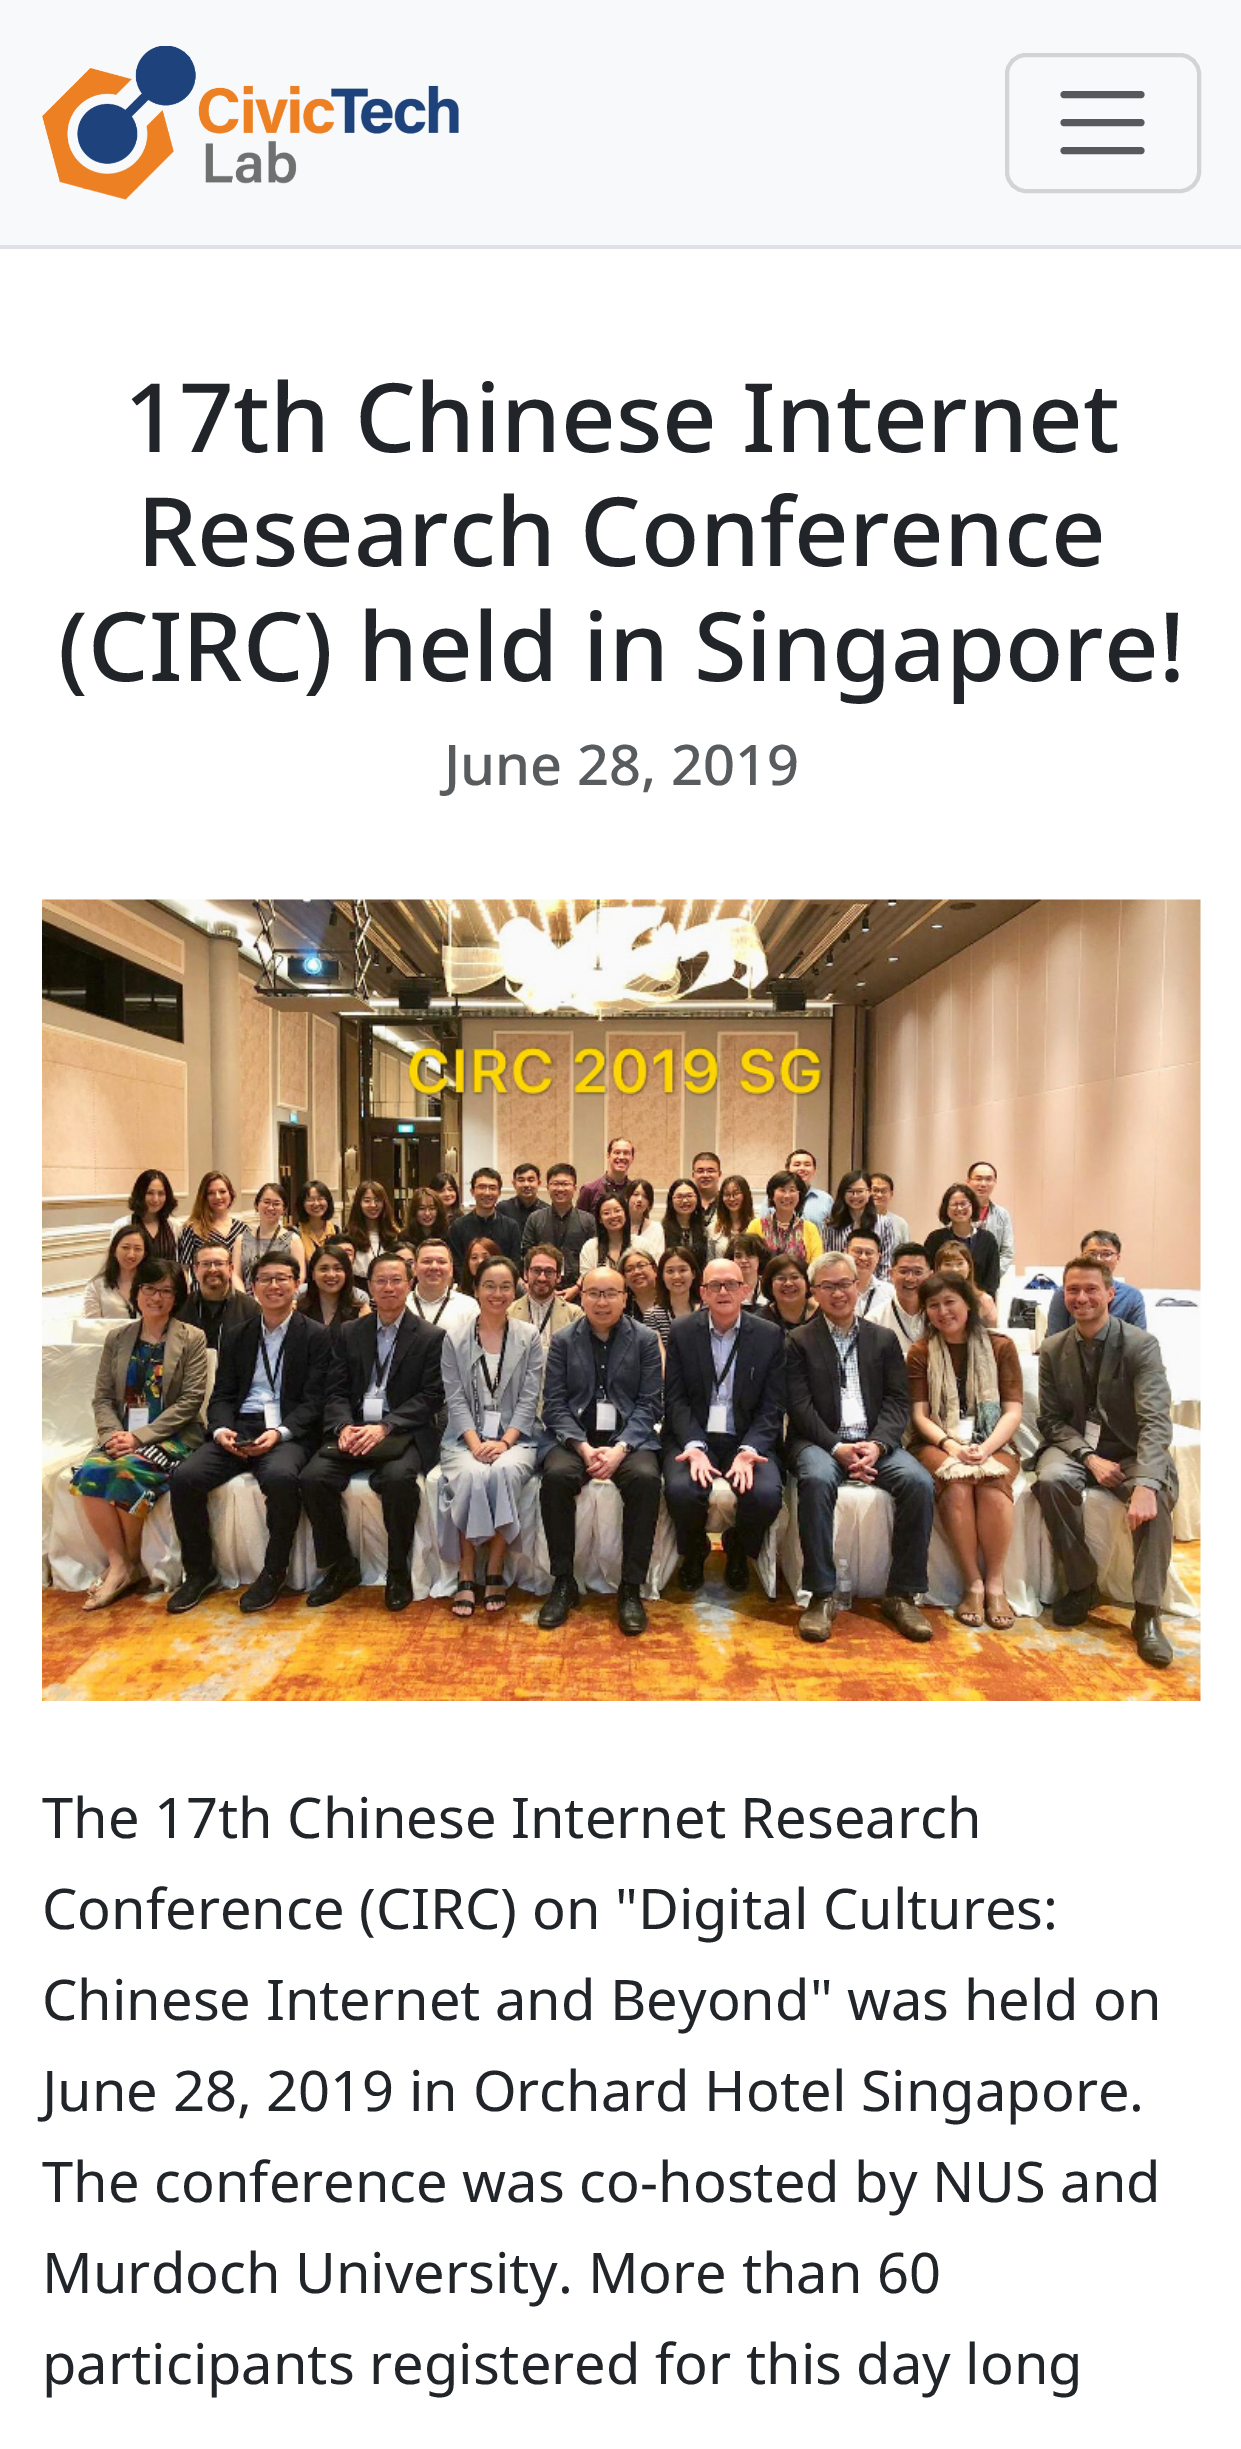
%!PS-Adobe-3.0
%%BoundingBox: 0 0 1241 2449
%%LanguageLevel: 3
%%Pages: 1
%%EndComments
%%BeginProlog
/rrect { 5 dict begin { /r /h /w /y /x } { exch def } forall
  x r add y moveto x w add y 2 copy h add r arct x w add y h add x 1 index r arct
  x y h add x y r arct x y 2 copy exch w add exch r arct closepath end } def
/drawimage { 5 dict begin { /h /w /y /x /name } { exch def } forall
  gsave x y translate w h scale
  w h 8 [w 0 0 h 0 0] name (r) file false 3 colorimage grestore end } def
%%EndProlog
%%BeginSetup
<< /PageSize [1241 2449] >> setpagedevice
%%EndSetup
%%Page: 1 1
0 2449 translate 1 -1 scale
4 setmiterlimit
1 setgray
0 0 1241 2449 rectfill
0.973 0.976 0.98 setrgbcolor
0 0 1241 245 rectfill
0.871 0.886 0.902 setrgbcolor
0 245 1241 4 rectfill
(images/1.raw) 42 46 417 154 drawimage
0.827 0.831 0.835 setrgbcolor
4 setlinewidth
1007 55 192 136 19 rrect stroke
0.341 0.353 0.365 setrgbcolor
7 setlinewidth
1 setlinecap
newpath 1064 94.5 moveto 1141 94.5 lineto 1064 122.5 moveto 1141 122.5 lineto 1064 150.5 moveto 1141 150.5 lineto stroke
(images/2.raw) 42 899 1159 802 drawimage
/NotoSans-Medium [95.6 0 0 -95.6 0 0] selectfont
0.129 0.145 0.161 setrgbcolor
124 452 moveto (17th Chinese Internet) show
137 566 moveto (Research Conference) show
58 681 moveto (\(CIRC\) held in Singapore!) show
/NotoSans-Medium [56 0 0 -56 0 0] selectfont
0.349 0.361 0.373 setrgbcolor
444 785 moveto (June 28, 2019) show
/NotoSans-Regular [56 0 0 -56 0 0] selectfont
0.129 0.145 0.161 setrgbcolor
42 1838 moveto (The 17th Chinese Internet Research) show
42 1929 moveto (Conference \(CIRC\) on "Digital Cultures:) show
42 2020 moveto (Chinese Internet and Beyond" was held on) show
42 2111 moveto (June 28, 2019 in Orchard Hotel Singapore.) show
42 2202 moveto (The conference was co-hosted by NUS and) show
42 2293 moveto (Murdoch University. More than 60) show
42 2384 moveto (participants registered for this day long) show
showpage
%%EOF
